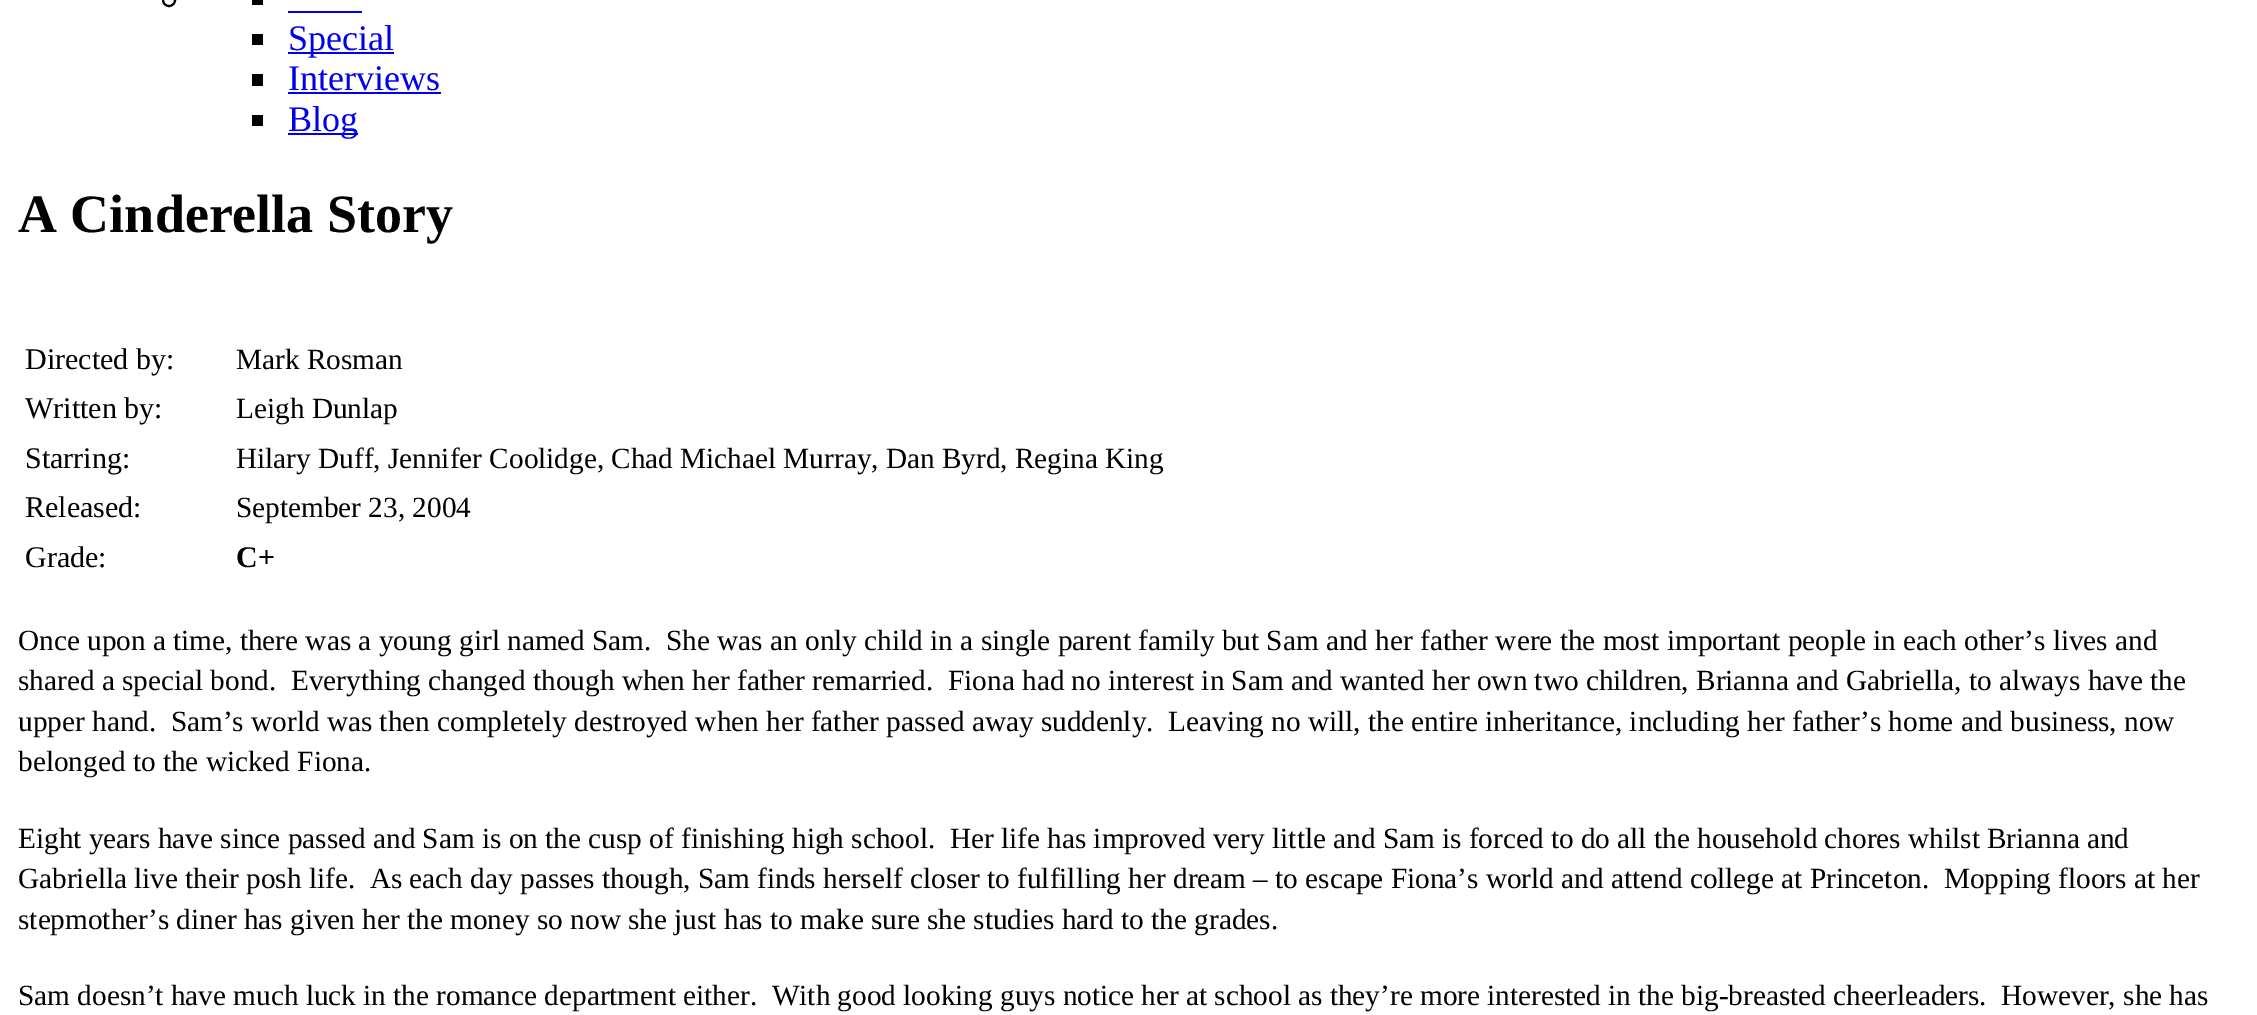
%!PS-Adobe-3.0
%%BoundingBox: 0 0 2257 1015
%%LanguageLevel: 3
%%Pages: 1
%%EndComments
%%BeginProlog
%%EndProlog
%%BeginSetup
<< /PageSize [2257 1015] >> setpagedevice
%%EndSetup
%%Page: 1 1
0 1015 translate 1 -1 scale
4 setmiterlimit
1 setgray
0 0 2257 1015 rectfill
0 setgray
2 setlinewidth
newpath 169 0 6 0 360 arc closepath stroke
252 0 11 5 rectfill
0 0 0.933 setrgbcolor
288 11 74 2 rectfill
0 setgray
252 34 11 11 rectfill
0 0 0.933 setrgbcolor
288 52 106 2 rectfill
0 setgray
252 74 11 12 rectfill
0 0 0.933 setrgbcolor
288 92 153 2 rectfill
0 setgray
252 115 11 11 rectfill
0 0 0.933 setrgbcolor
288 133 70 2 rectfill
/LiberationSerif-Regular [36 0 0 -36 0 0] selectfont
288 50 moveto (Special) show
288 90 moveto (Interviews) show
288 131 moveto (Blog) show
/LiberationSerif-Bold [54 0 0 -54 0 0] selectfont
0 setgray
18 232 moveto (A Cinderella Story) show
/LiberationSerif-Regular [30 0 0 -30 0 0] selectfont
25 369 moveto (Directed by:) show
/LiberationSerif-Regular [29.25 0 0 -29.25 0 0] selectfont
236 369 moveto (Mark Rosman) show
/LiberationSerif-Regular [30 0 0 -30 0 0] selectfont
25 418 moveto (Written by:) show
/LiberationSerif-Regular [29.25 0 0 -29.25 0 0] selectfont
236 418 moveto (Leigh Dunlap) show
/LiberationSerif-Regular [30 0 0 -30 0 0] selectfont
25 468 moveto (Starring:) show
/LiberationSerif-Regular [29.25 0 0 -29.25 0 0] selectfont
236 468 moveto (Hilary Duff, Jennifer Coolidge, Chad Michael Murray, Dan Byrd, Regina King) show
/LiberationSerif-Regular [30 0 0 -30 0 0] selectfont
25 517 moveto (Released:) show
/LiberationSerif-Regular [29.25 0 0 -29.25 0 0] selectfont
236 517 moveto (September 23, 2004) show
/LiberationSerif-Regular [30 0 0 -30 0 0] selectfont
25 567 moveto (Grade:) show
/LiberationSerif-Bold [30 0 0 -30 0 0] selectfont
236 567 moveto (C+) show
/LiberationSerif-Regular [29.25 0 0 -29.25 0 0] selectfont
18 650 moveto (Once upon a time, there was a young girl named Sam.  She was an only child in a single parent family but Sam and her father were the most important people in each other’s lives and) show
18 690 moveto (shared a special bond.) show
291 690 moveto (Everything changed though when her father remarried.  Fiona had no interest in Sam and wanted her own two children, Brianna and Gabriella, to always have the) show
18 731 moveto (upper hand.  Sam’s world was then completely destroyed when her father passed away suddenly.  Leaving no will, the entire inheritance, including her father’s home and business, now) show
18 771 moveto (belonged to the wicked Fiona.) show
18 848 moveto (Eight years have since passed and Sam is on the cusp of finishing high school.  Her life has improved very little and Sam is forced to do all the household chores whilst Brianna and) show
18 888 moveto (Gabriella live their posh life.  As each day passes though, Sam finds herself closer to fulfilling her dream – to escape Fiona’s world and attend college at Princeton.  Mopping floors at her) show
18 929 moveto (stepmother’s diner has given her the money so now she just has to make sure she studies hard to the grades.) show
18 1005 moveto (Sam doesn’t have much luck in the romance department either.  With good looking guys notice her at school as they’re more interested in the big-breasted cheerleaders.  However, she has) show
showpage
%%EOF
